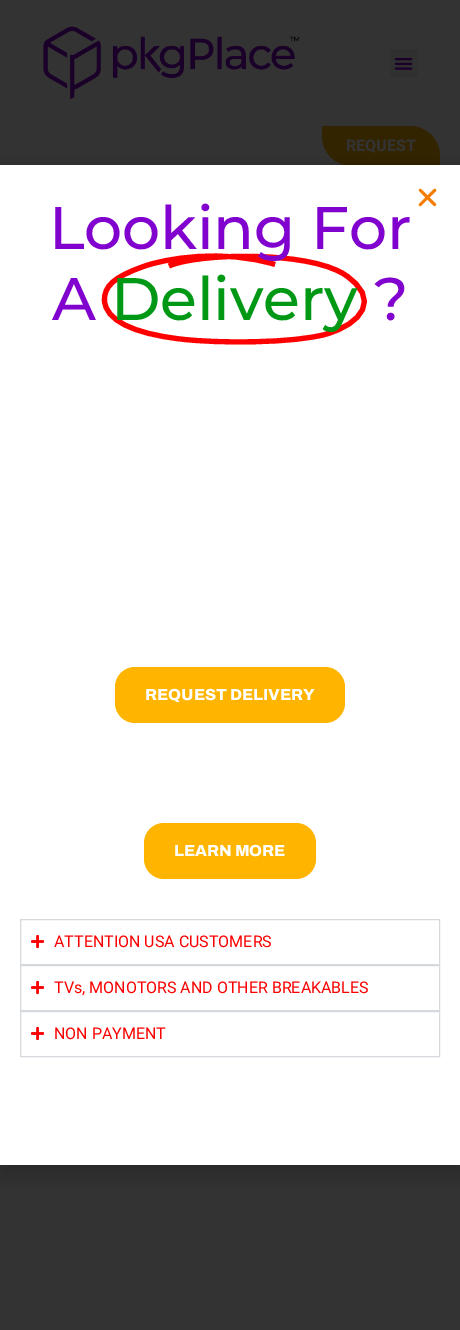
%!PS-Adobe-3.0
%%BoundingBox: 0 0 460 1330
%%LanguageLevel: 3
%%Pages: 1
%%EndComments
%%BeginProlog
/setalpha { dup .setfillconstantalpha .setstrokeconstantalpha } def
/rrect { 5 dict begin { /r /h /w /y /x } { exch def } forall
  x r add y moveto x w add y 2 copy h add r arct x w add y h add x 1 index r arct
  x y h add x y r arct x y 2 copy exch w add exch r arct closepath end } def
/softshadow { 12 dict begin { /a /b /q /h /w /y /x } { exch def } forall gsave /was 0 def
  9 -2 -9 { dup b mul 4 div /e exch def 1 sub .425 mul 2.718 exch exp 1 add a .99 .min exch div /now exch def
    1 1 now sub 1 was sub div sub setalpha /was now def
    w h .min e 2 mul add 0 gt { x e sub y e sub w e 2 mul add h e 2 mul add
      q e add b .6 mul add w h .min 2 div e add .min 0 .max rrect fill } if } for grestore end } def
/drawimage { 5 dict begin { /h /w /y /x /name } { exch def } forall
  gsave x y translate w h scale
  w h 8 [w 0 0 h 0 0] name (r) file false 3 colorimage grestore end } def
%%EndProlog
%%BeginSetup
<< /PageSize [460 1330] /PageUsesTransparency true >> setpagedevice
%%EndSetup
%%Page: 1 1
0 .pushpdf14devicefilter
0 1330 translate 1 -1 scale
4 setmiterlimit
0.2 setgray
0 0 460 1330 rectfill
(images/1.raw) 43 26 257 74 drawimage
0.188 setgray
390 49 28 28 rectfill
(images/2.raw) 394 57 19 13 drawimage
0.2 0.141 0 setrgbcolor
newpath 322 126 moveto 410 126 lineto 426.5 126 440 139.5 440 156 curveto 440 166 lineto 352 166 lineto 335.5 166 322 152.5 322 136 curveto closepath fill
0 setgray
-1 170 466 1006 0 11.5 0.2 softshadow
1 setgray
0 165 460 1000 rectfill
(images/3.raw) 418 188 19 19 drawimage
1 0 0 setrgbcolor
5.1 setlinewidth
newpath 275 264.5 moveto 223.5 248.5 165 258.5 143.5 266.5 curveto 113.5 277 104 286.5 104.5 300.5 curveto 105.5 320 132.5 333.5 180.5 339 curveto 216 343.5 294 343.5 326.5 334 curveto 361 324 382 299 344.5 274.5 curveto 308 250.5 197.5 253 169 266 curveto stroke
1 0.71 0 setrgbcolor
115 667 230 56 20 rrect fill
144 823 172 56 20 rrect fill
0.835 0.847 0.863 setrgbcolor
1 setlinewidth
20.5 919.5 419 45 rectstroke
(images/4.raw) 31 934 13 15 drawimage
20.5 965.5 419 45 rectstroke
(images/4.raw) 31 980 13 15 drawimage
20.5 1011.5 419 45 rectstroke
(images/4.raw) 31 1026 13 15 drawimage
/Roboto-ExtraBold [16 0 0 -16 0 0] selectfont
0.2 setgray
346 151 moveto (REQUEST) show
/Montserrat-Medium [60 0 0 -60 0 0] selectfont
0.506 0.008 0.808 setrgbcolor
49 249 moveto -0.25 0 (Looking For) ashow
52 320 moveto -0.25 0 (A) ashow
0 0.596 0.078 setrgbcolor
111 320 moveto -0.25 0 (Delivery) ashow
0.506 0.008 0.808 setrgbcolor
374 320 moveto -0.25 0 (?) ashow
/Archivo-ExtraBold [16 0 0 -16 0 0] selectfont
1 setgray
145 700 moveto (REQUEST DELIVERY) show
174 856 moveto (LEARN MORE) show
/Roboto-Regular [16 0 0 -16 0 0] selectfont
0.98 0 0 setrgbcolor
54 947 moveto (ATTENTION USA CUSTOMERS) show
54 993 moveto (TVs, MONOTORS AND OTHER BREAKABLES) show
54 1039 moveto (NON PAYMENT) show
.poppdf14devicefilter showpage
%%EOF
